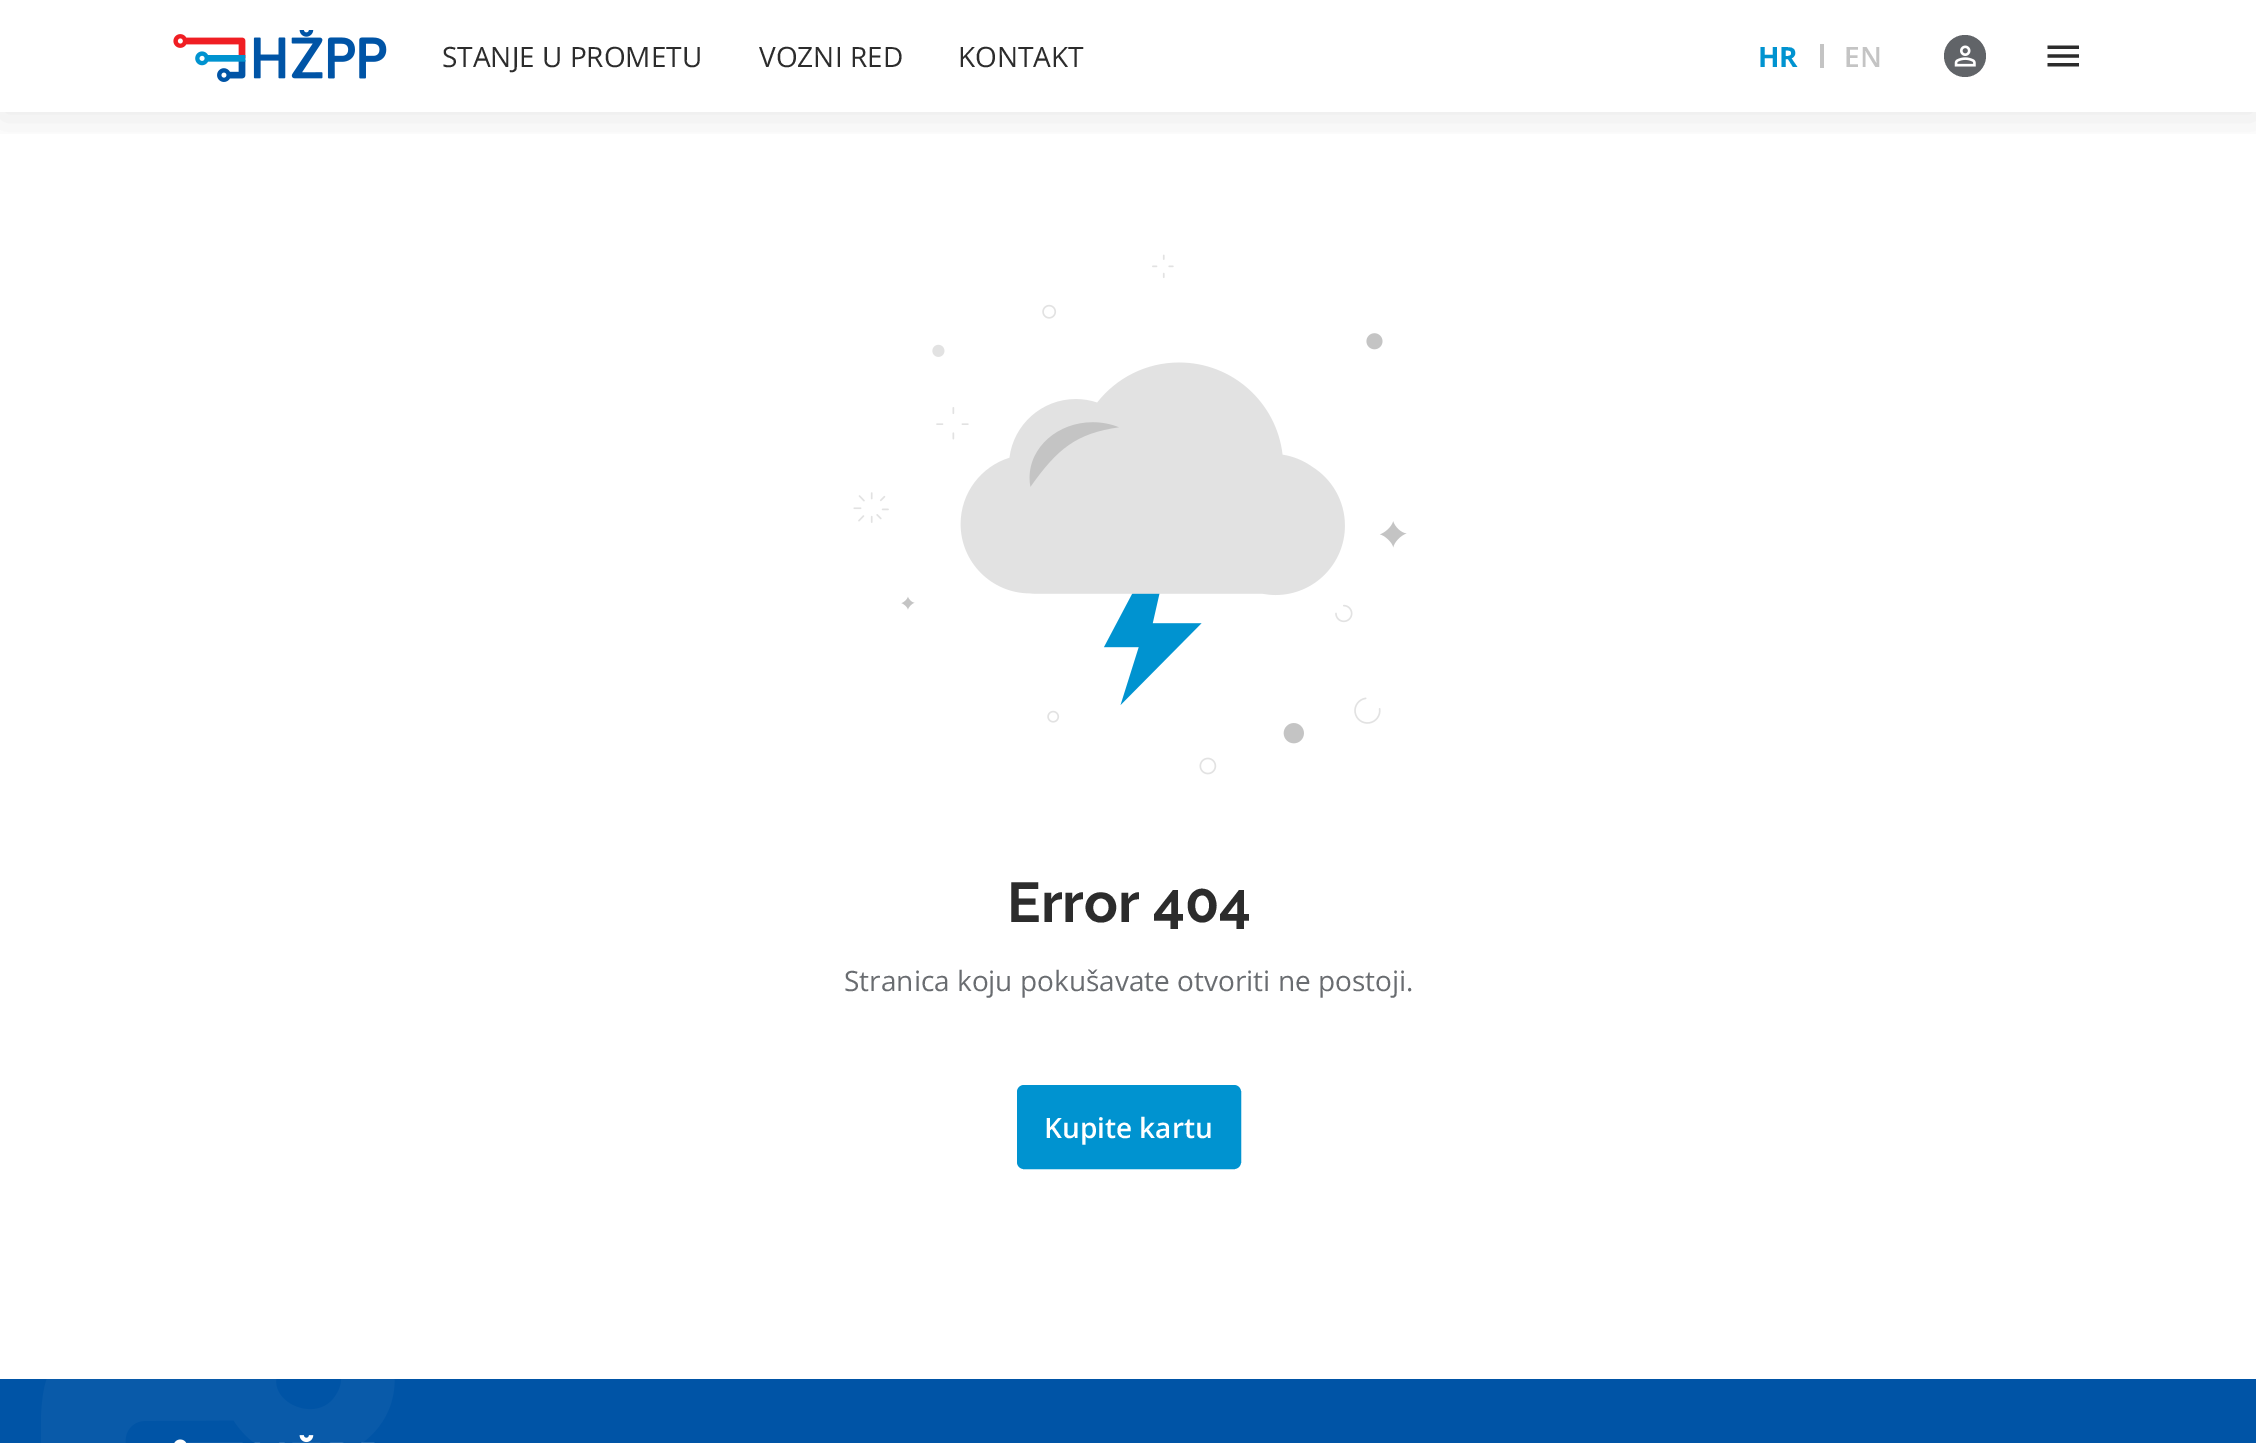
%!PS-Adobe-3.0
%%BoundingBox: 0 0 2256 1443
%%LanguageLevel: 3
%%Pages: 1
%%EndComments
%%BeginProlog
/setalpha { dup .setfillconstantalpha .setstrokeconstantalpha } def
/rrect { 5 dict begin { /r /h /w /y /x } { exch def } forall
  x r add y moveto x w add y 2 copy h add r arct x w add y h add x 1 index r arct
  x y h add x y r arct x y 2 copy exch w add exch r arct closepath end } def
/softshadow { 12 dict begin { /a /b /q /h /w /y /x } { exch def } forall gsave /was 0 def
  9 -2 -9 { dup b mul 4 div /e exch def 1 sub .425 mul 2.718 exch exp 1 add a .99 .min exch div /now exch def
    1 1 now sub 1 was sub div sub setalpha /was now def
    w h .min e 2 mul add 0 gt { x e sub y e sub w e 2 mul add h e 2 mul add
      q e add b .6 mul add w h .min 2 div e add .min 0 .max rrect fill } if } for grestore end } def
/drawimage { 5 dict begin { /h /w /y /x /name } { exch def } forall
  gsave x y translate w h scale
  w h 8 [w 0 0 h 0 0] name (r) file false 3 colorimage grestore end } def
%%EndProlog
%%BeginSetup
<< /PageSize [2256 1443] /PageUsesTransparency true >> setpagedevice
%%EndSetup
%%Page: 1 1
0 .pushpdf14devicefilter
0 1443 translate 1 -1 scale
4 setmiterlimit
1 setgray
0 0 2256 1443 rectfill
gsave
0 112 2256 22 rectclip
0.173 setgray
0 7 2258 112 0 17.5 0.1 softshadow
grestore
(images/1.raw) 173 30 214 52 drawimage
0.769 setgray
1820 44 4 24 rectfill
0.38 0.392 0.408 setrgbcolor
newpath 1965 56 21 0 360 arc closepath fill
(images/2.raw) 1954 45 22 22 drawimage
(images/3.raw) 2047 45 32 22 drawimage
(images/4.raw) 853 254 554 521 drawimage
0 0.576 0.816 setrgbcolor
1018 1086 222 82 6 rrect gsave fill grestore
2 setlinewidth
stroke
0 0.329 0.651 setrgbcolor
0 1379 2256 64 rectfill
(images/5.raw) 41 1379 354 64 drawimage
(images/6.raw) 174 1435 201 8 drawimage
/OpenSans-Regular [28 0 0 -28 0 0] selectfont
0.173 setgray
442 67 moveto (STANJE U PROMETU) show
759 67 moveto (VOZNI RED) show
958 67 moveto (KONTAKT) show
/OpenSans-Bold [28 0 0 -28 0 0] selectfont
0 0.576 0.816 setrgbcolor
1758 67 moveto (HR) show
/OpenSans-SemiBold [28 0 0 -28 0 0] selectfont
0.769 setgray
1844 67 moveto (EN) show
/Raleway-Thin [56 0 0 -56 0 0] selectfont
0.173 setgray
1007 922 moveto (Error 404) show
/OpenSans-Regular [28 0 0 -28 0 0] selectfont
0.412 0.424 0.439 setrgbcolor
844 991 moveto (Stranica koju pokušavate otvoriti ne postoji.) show
/OpenSans-SemiBold [28 0 0 -28 0 0] selectfont
1 setgray
1044 1138 moveto (Kupite kartu) show
.poppdf14devicefilter showpage
%%EOF
